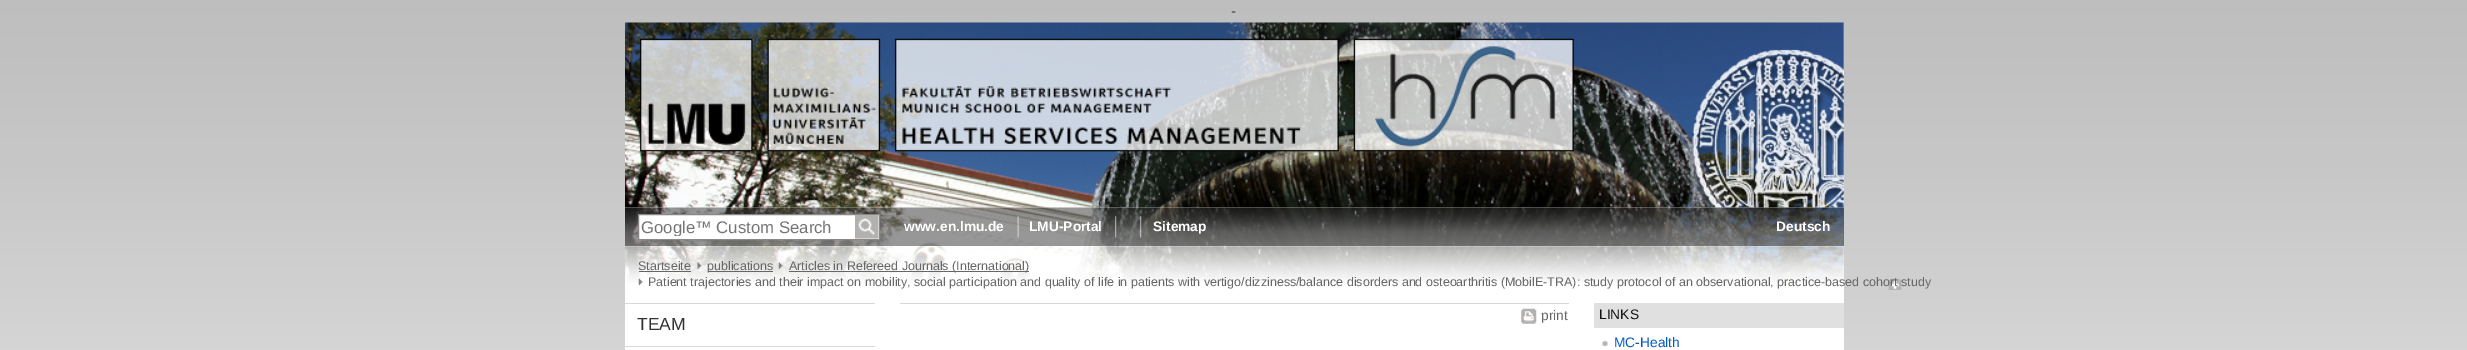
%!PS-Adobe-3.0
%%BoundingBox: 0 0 2467 350
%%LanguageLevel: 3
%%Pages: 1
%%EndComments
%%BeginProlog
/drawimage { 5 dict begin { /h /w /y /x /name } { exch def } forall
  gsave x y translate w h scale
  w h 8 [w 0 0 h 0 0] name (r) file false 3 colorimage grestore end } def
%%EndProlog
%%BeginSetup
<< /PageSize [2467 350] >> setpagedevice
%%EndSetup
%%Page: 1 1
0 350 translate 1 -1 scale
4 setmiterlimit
0.898 setgray
0 0 2467 350 rectfill
(images/1.raw) 0 0 2467 350 drawimage
1 setgray
625 23 1219 327 rectfill
(images/2.raw) 625 22 1219 186 drawimage
(images/3.raw) 625 207 1219 39 drawimage
newpath 638.5 214.5 moveto 879.5 214.5 lineto 879.5 239.5 lineto 638.5 239.5 lineto closepath gsave fill grestore
0.533 setgray
stroke
(images/4.raw) 855 215 24 24 drawimage
(images/5.raw) 1017 216 2 22 drawimage
(images/6.raw) 1115 216 2 22 drawimage
(images/7.raw) 1140 216 2 22 drawimage
(images/8.raw) 625 246 1219 37 drawimage
0.4 setgray
639 271 52 1 rectfill
(images/9.raw) 697 262 5 7 drawimage
708 271 65 1 rectfill
(images/10.raw) 778 262 5 7 drawimage
789 271 240 1 rectfill
(images/11.raw) 638 278 1264 12 drawimage
0.847 setgray
625 303 250 1 rectfill
625 346 250 1 rectfill
900 303 669 1 rectfill
(images/12.raw) 1521 308 16 16 drawimage
0.878 setgray
1594 303 250 25 rectfill
(images/13.raw) 1602 341 6 5 drawimage
/LiberationSans-Regular [15 0 0 -15 0 0] selectfont
0.2 setgray
1231 16 moveto (-) show
gsave
641 218 207 18 rectclip
/LiberationSans-Regular [16.75 0 0 -16.75 0 0] selectfont
0.459 setgray
641 233 moveto (Google™ Custom Search) show
grestore
/LiberationSans-Bold [13.75 0 0 -13.75 0 0] selectfont
1 setgray
904 231 moveto (www.en.lmu.de) show
1029 231 moveto (LMU-Portal) show
1153 231 moveto (Sitemap) show
1776 231 moveto (Deutsch) show
/LiberationSans-Regular [12.5 0 0 -12.5 0 0] selectfont
0.4 setgray
638 270 moveto (Startseite) show
707 270 moveto (publications) show
789 270 moveto (Articles in Refereed Journals \(International\)) show
648 286 moveto (Patient trajectories and their impact on mobility, social participation and quality of life in patients with vertigo/dizziness/balance disorders and osteoarthritis \(MobilE-TRA\): study protocol of an observational, practice-based cohort study) show
/LiberationSans-Regular [17.5 0 0 -17.5 0 0] selectfont
0.2 setgray
637 330 moveto (TEAM) show
/LiberationSans-Regular [13.75 0 0 -13.75 0 0] selectfont
0.4 setgray
1541 320 moveto (print) show
0.067 setgray
1599 319 moveto (LINKS) show
0.008 0.349 0.761 setrgbcolor
1614 347 moveto (MC-Health) show
showpage
%%EOF
